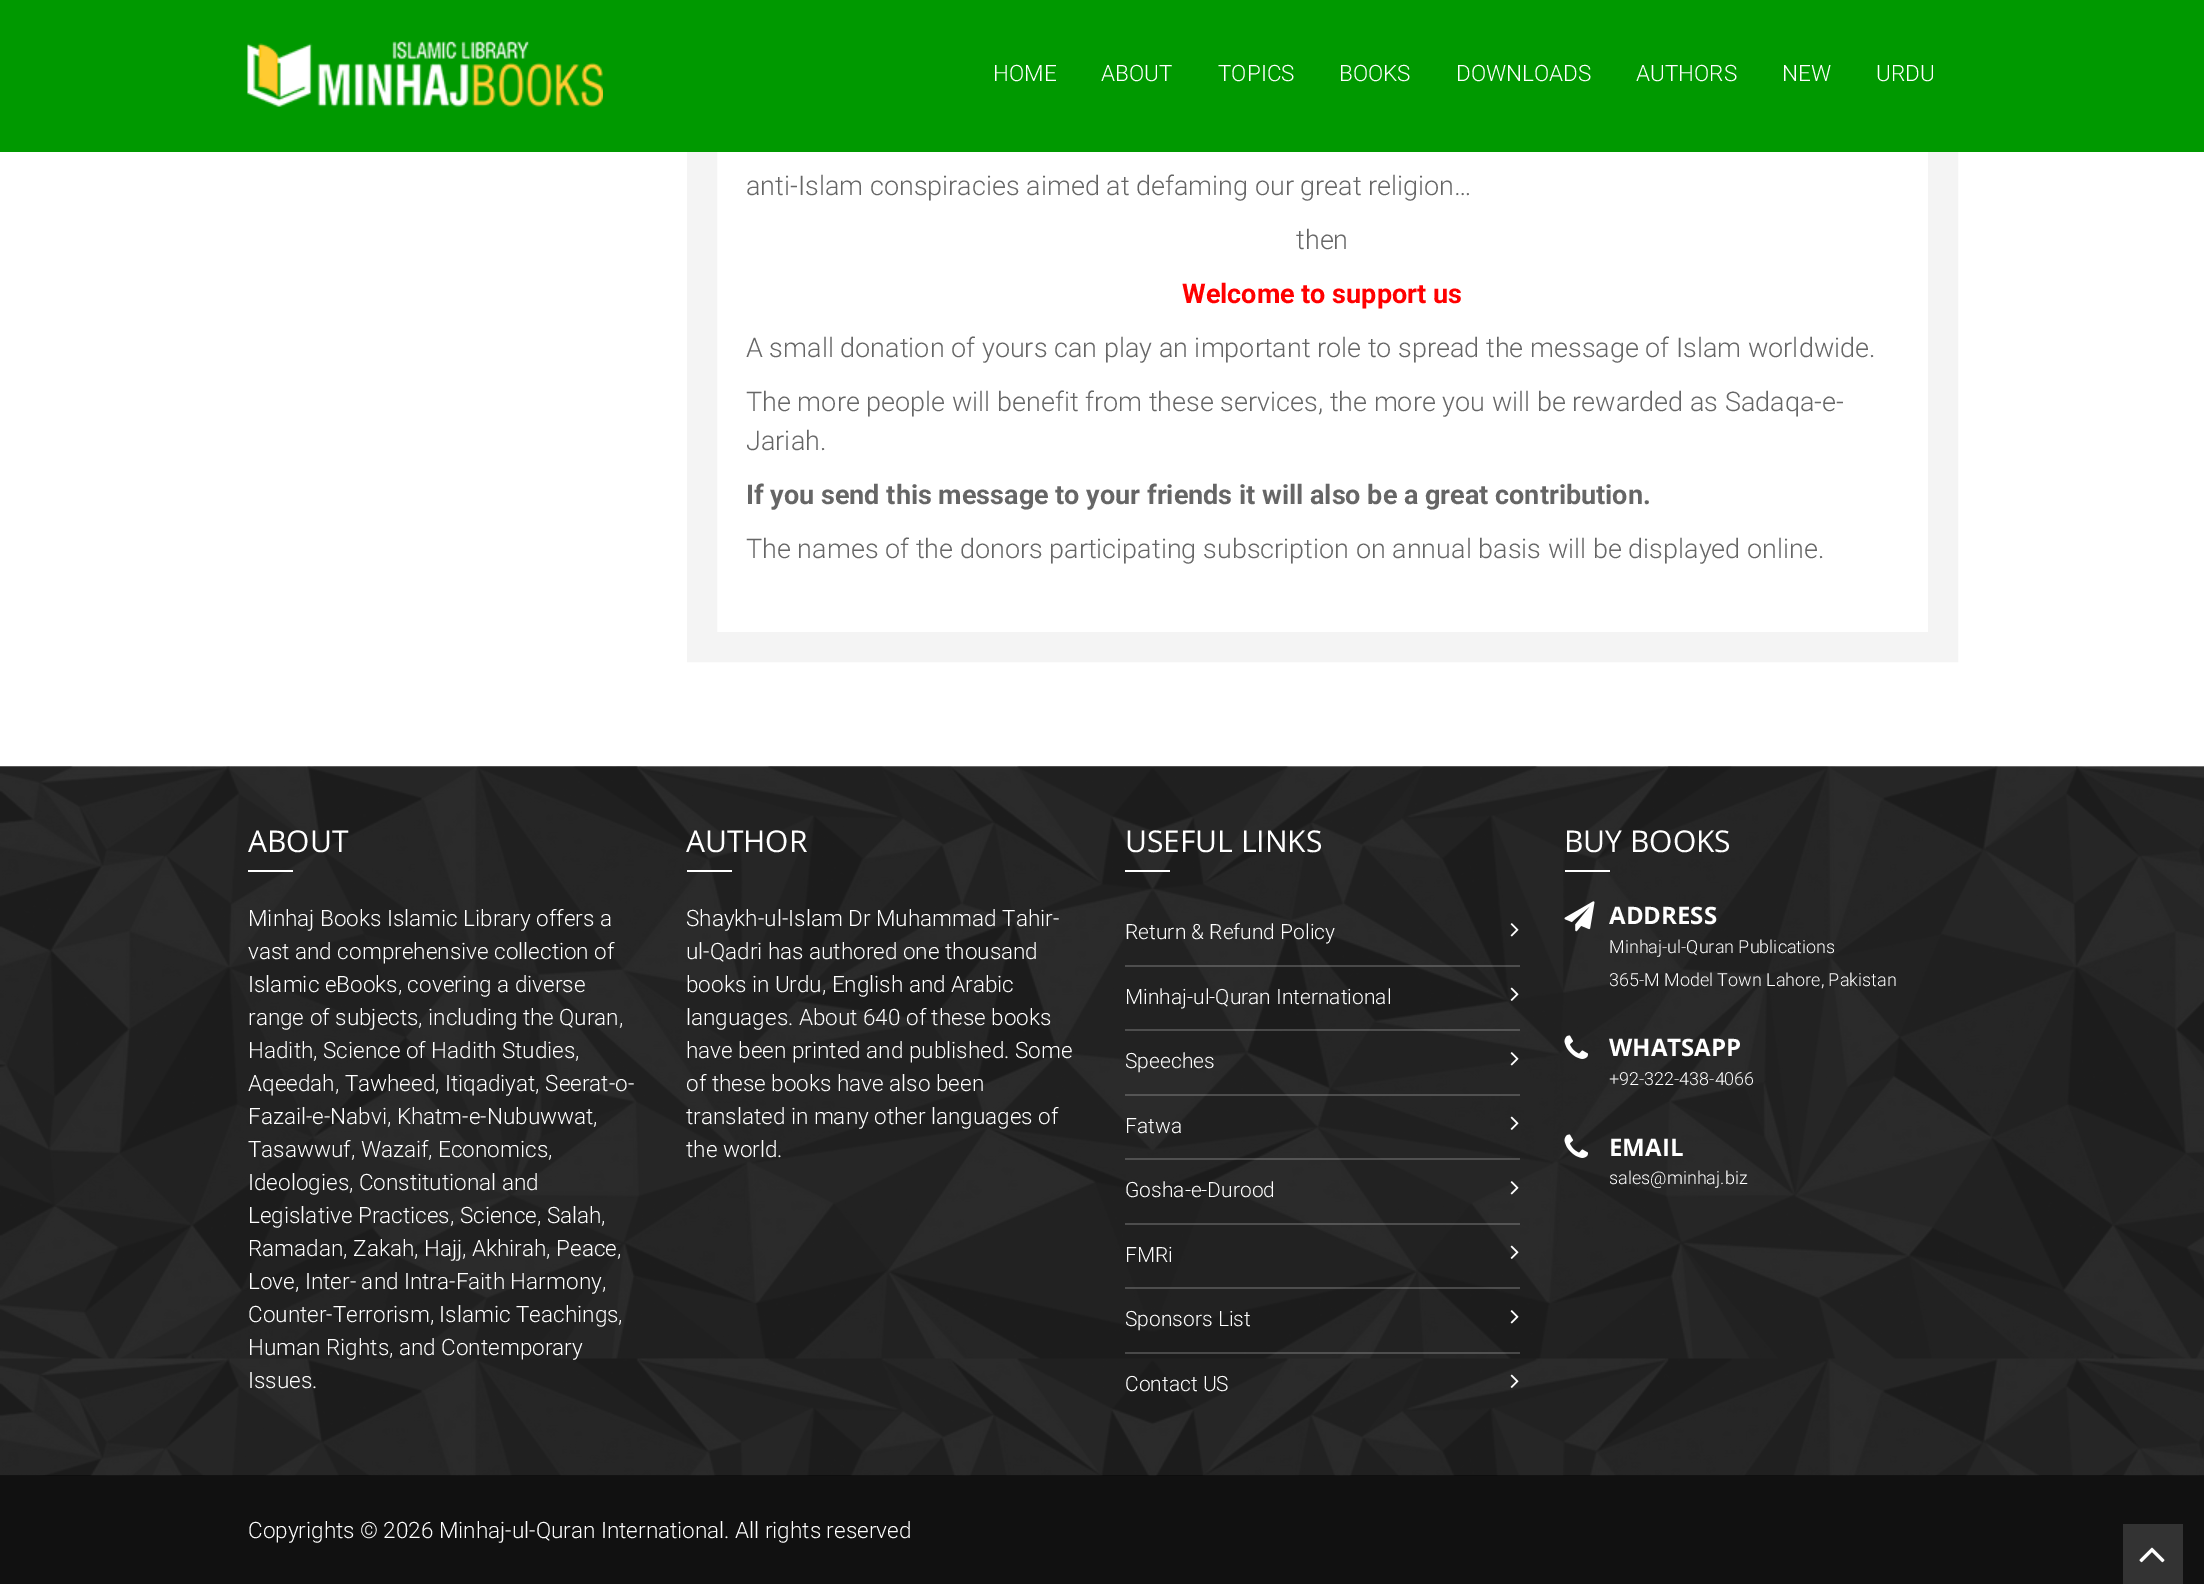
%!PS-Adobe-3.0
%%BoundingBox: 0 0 2204 1584
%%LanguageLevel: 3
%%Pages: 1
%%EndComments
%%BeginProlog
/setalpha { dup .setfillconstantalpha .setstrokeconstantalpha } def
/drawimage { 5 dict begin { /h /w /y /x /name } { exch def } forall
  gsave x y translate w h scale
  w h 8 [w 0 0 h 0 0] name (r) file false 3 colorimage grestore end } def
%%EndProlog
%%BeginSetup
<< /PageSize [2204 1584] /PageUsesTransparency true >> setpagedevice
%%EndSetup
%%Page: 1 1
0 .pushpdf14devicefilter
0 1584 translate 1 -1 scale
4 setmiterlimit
1 setgray
0 0 2204 1584 rectfill
0.957 setgray
30 setlinewidth
702 -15 1241 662 rectstroke
0 0.6 0 setrgbcolor
0 0 2204 152 rectfill
(images/1.raw) 247 41 356 66 drawimage
0 setgray
0 1475 2204 1 rectfill
(images/2.raw) 0 766 2204 710 drawimage
1 setgray
248 870 45 2 rectfill
687 870 45 2 rectfill
1125 870 45 2 rectfill
(images/3.raw) 1510 923 9 14 drawimage
0.2 setalpha
1125 965 395 2 rectfill
1 setalpha
(images/4.raw) 1510 987 9 14 drawimage
0.2 setalpha
1125 1029 395 2 rectfill
1 setalpha
(images/5.raw) 1510 1052 9 14 drawimage
0.2 setalpha
1125 1094 395 2 rectfill
1 setalpha
(images/6.raw) 1510 1116 9 14 drawimage
0.2 setalpha
1125 1158 395 2 rectfill
1 setalpha
(images/7.raw) 1510 1181 9 14 drawimage
0.2 setalpha
1125 1223 395 2 rectfill
1 setalpha
(images/8.raw) 1510 1245 9 14 drawimage
0.2 setalpha
1125 1287 395 2 rectfill
1 setalpha
(images/9.raw) 1510 1310 9 14 drawimage
0.2 setalpha
1125 1352 395 2 rectfill
1 setalpha
(images/10.raw) 1510 1374 9 14 drawimage
1565 870 45 2 rectfill
(images/11.raw) 1564 901 31 31 drawimage
(images/12.raw) 1564 1035 24 24 drawimage
(images/13.raw) 1564 1134 24 24 drawimage
0.067 setgray
0 1476 2204 108 rectfill
0.2 setgray
2123 1524 60 60 rectfill
(images/14.raw) 2139 1547 26 16 drawimage
/Roboto-Light [22.5 0 0 -22.5 0 0] selectfont
1 setgray
993 81 moveto (HOME) show
1101 81 moveto (ABOUT) show
1218 81 moveto (TOPICS) show
1339 81 moveto (BOOKS) show
1456 81 moveto (DOWNLOADS) show
1636 81 moveto (AUTHORS) show
1782 81 moveto (NEW) show
1876 81 moveto (URDU) show
/Roboto-Light [27 0 0 -27 0 0] selectfont
0.4 setgray
746 195 moveto (anti-Islam conspiracies aimed at defaming our great religion…) show
1296 249 moveto (then) show
/Roboto-Bold [27 0 0 -27 0 0] selectfont
1 0 0 setrgbcolor
1182 303 moveto (Welcome to support us) show
/Roboto-Light [27 0 0 -27 0 0] selectfont
0.4 setgray
746 357 moveto (A small donation of yours can play an important role to spread the message of Islam worldwide.) show
746 411 moveto (The more people will benefit from these services, the more you will be rewarded as Sadaqa-e-) show
746 450 moveto (Jariah.) show
/Roboto-Bold [27 0 0 -27 0 0] selectfont
746 504 moveto (If you send this message to your friends it will also be a great contribution.) show
/Roboto-Light [27 0 0 -27 0 0] selectfont
746 558 moveto (The names of the donors participating subscription on annual basis will be displayed online.) show
/OpenSans-Regular [30 0 0 -30 0 0] selectfont
1 setgray
248 852 moveto (ABOUT) show
/Roboto-Light [22.5 0 0 -22.5 0 0] selectfont
248 926 moveto (Minhaj Books Islamic Library offers a) show
248 959 moveto (vast and comprehensive collection of) show
248 992 moveto (Islamic eBooks, covering a diverse) show
248 1025 moveto (range of subjects, including the Quran,) show
248 1058 moveto (Hadith, Science of Hadith Studies,) show
248 1091 moveto (Aqeedah, Tawheed, Itiqadiyat, Seerat-o-) show
248 1124 moveto (Fazail-e-Nabvi, Khatm-e-Nubuwwat,) show
248 1157 moveto (Tasawwuf, Wazaif, Economics,) show
248 1190 moveto (Ideologies, Constitutional and) show
248 1223 moveto (Legislative Practices, Science, Salah,) show
248 1256 moveto (Ramadan, Zakah, Hajj, Akhirah, Peace,) show
248 1289 moveto (Love, Inter- and Intra-Faith Harmony,) show
248 1322 moveto (Counter-Terrorism, Islamic Teachings,) show
248 1355 moveto (Human Rights, and Contemporary) show
248 1388 moveto (Issues.) show
/OpenSans-Regular [30 0 0 -30 0 0] selectfont
686 852 moveto (AUTHOR) show
/Roboto-Light [22.5 0 0 -22.5 0 0] selectfont
686 926 moveto (Shaykh-ul-Islam Dr Muhammad Tahir-) show
686 959 moveto (ul-Qadri has authored one thousand) show
686 992 moveto (books in Urdu, English and Arabic) show
686 1025 moveto (languages. About 640 of these books) show
686 1058 moveto (have been printed and published. Some) show
686 1091 moveto (of these books have also been) show
686 1124 moveto (translated in many other languages of) show
686 1157 moveto (the world.) show
/OpenSans-Regular [30 0 0 -30 0 0] selectfont
1125 852 moveto (USEFUL LINKS) show
/Roboto-Light [21 0 0 -21 0 0] selectfont
1125 939 moveto (Return & Refund Policy) show
1125 1004 moveto (Minhaj-ul-Quran International) show
1125 1068 moveto (Speeches) show
1125 1133 moveto (Fatwa) show
1125 1197 moveto (Gosha-e-Durood) show
1125 1262 moveto (FMRi) show
1125 1326 moveto (Sponsors List) show
1125 1391 moveto (Contact US) show
/OpenSans-Regular [30 0 0 -30 0 0] selectfont
1564 852 moveto (BUY BOOKS) show
/OpenSans-Bold [24 0 0 -24 0 0] selectfont
1609 924 moveto (ADDRESS) show
/Roboto-Light [18 0 0 -18 0 0] selectfont
1609 953 moveto (Minhaj-ul-Quran Publications) show
1609 986 moveto (365-M Model Town Lahore, Pakistan) show
/OpenSans-Bold [24 0 0 -24 0 0] selectfont
1609 1056 moveto (WHATSAPP) show
/Roboto-Light [18 0 0 -18 0 0] selectfont
1609 1085 moveto (+92-322-438-4066) show
/OpenSans-Bold [24 0 0 -24 0 0] selectfont
1609 1156 moveto (EMAIL) show
/Roboto-Light [18 0 0 -18 0 0] selectfont
1609 1184 moveto (sales@minhaj.biz) show
/Roboto-Light [22.5 0 0 -22.5 0 0] selectfont
248 1538 moveto (Copyrights © 2026 Minhaj-ul-Quran International. All rights reserved) show
.poppdf14devicefilter showpage
%%EOF
